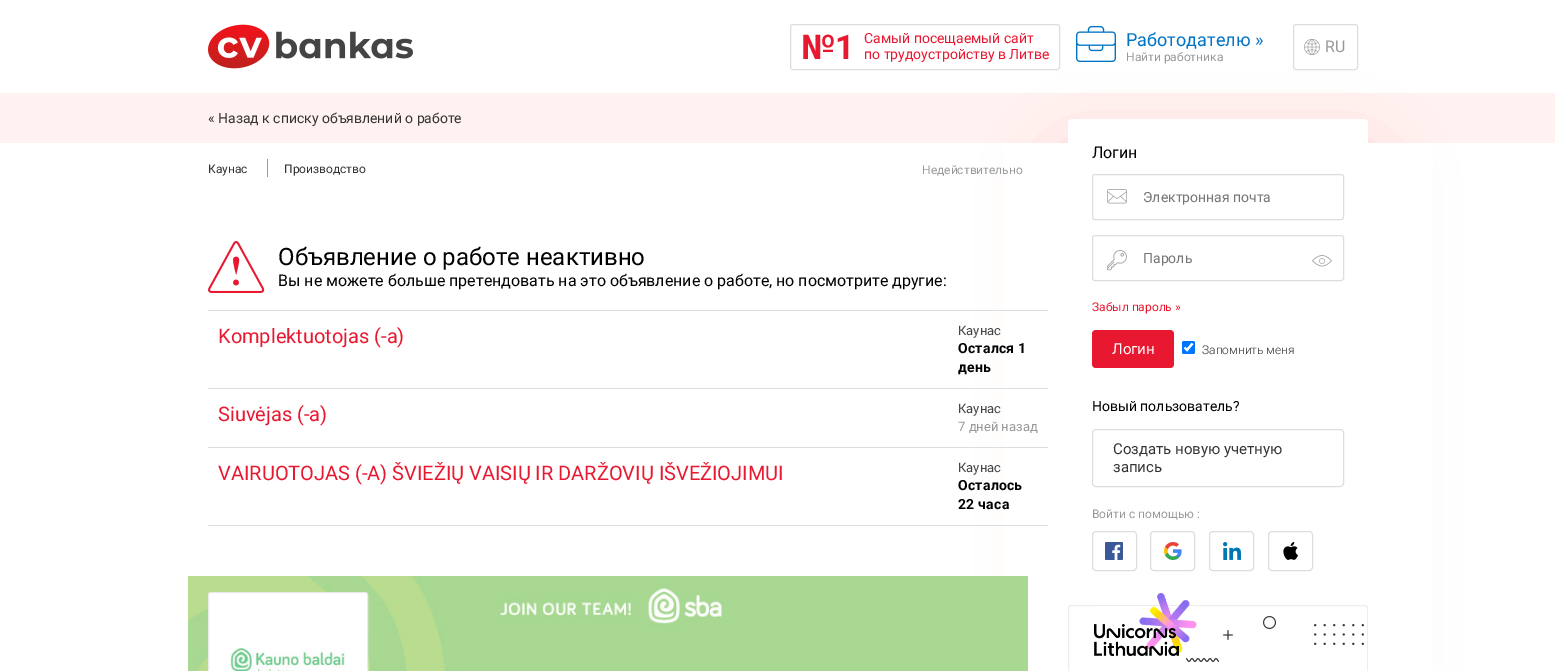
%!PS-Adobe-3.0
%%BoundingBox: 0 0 1555 671
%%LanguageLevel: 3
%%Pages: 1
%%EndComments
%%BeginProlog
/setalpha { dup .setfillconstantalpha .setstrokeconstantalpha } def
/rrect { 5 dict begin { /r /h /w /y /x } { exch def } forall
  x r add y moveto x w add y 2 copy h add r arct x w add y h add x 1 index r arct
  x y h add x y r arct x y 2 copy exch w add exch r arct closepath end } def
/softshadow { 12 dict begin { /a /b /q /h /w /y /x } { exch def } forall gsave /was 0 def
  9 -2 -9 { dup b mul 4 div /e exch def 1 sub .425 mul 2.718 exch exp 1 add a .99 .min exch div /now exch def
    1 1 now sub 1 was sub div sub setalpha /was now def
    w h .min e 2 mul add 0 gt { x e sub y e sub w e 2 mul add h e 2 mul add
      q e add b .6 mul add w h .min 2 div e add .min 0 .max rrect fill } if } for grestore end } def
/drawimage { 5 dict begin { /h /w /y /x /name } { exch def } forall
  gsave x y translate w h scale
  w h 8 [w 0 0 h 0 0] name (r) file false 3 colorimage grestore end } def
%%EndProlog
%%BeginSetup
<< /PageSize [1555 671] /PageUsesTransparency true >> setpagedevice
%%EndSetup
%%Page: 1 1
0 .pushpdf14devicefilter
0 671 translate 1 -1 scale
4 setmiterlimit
1 setgray
0 0 1555 671 rectfill
(images/1.raw) 208 24 205 45 drawimage
1 0.949 0.941 setrgbcolor
0 93 1068 50 rectfill
1068 93 300 31 rectfill
1368 93 187 50 rectfill
0.894 0 0 setrgbcolor
1063 160 310 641 10 40 0.15 softshadow
0.867 setgray
790.5 24.5 269 45 2.5 rrect stroke
(images/2.raw) 1076 26 40 36 drawimage
(images/3.raw) 1304 39 16 16 drawimage
1293.5 24.5 64 45 2.5 rrect stroke
1 setgray
1003 143 65 528 rectfill
0.6 setgray
267 159 1 18 rectfill
(images/4.raw) 208 241 57 52 drawimage
0.867 setgray
208 310 840 1 rectfill
208 388 840 1 rectfill
208 447 840 1 rectfill
208 525 840 1 rectfill
(images/5.raw) 188 576 840 95 drawimage
1 setgray
208.5 592.5 159 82 2.5 rrect gsave fill grestore
0.922 setgray
stroke
(images/6.raw) 230 647 116 24 drawimage
1 setgray
newpath 1073 119 moveto 1363 119 lineto 1366 119 1368 121 1368 124 curveto 1368 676 lineto 1068 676 lineto 1068 124 lineto 1068 121 1070 119 1073 119 curveto closepath fill
newpath 1073 119 moveto 1363 119 lineto 1366 119 1368 121 1368 124 curveto 1368 575 lineto 1068 575 lineto 1068 124 lineto 1068 121 1070 119 1073 119 curveto closepath fill
0.867 setgray
1092.5 174.5 251 45 2.5 rrect stroke
(images/7.raw) 1107 189 20 15 drawimage
1092.5 235.5 251 45 2.5 rrect stroke
(images/8.raw) 1107 250 20 21 drawimage
(images/9.raw) 1312 255 20 12 drawimage
0.914 0.094 0.192 setrgbcolor
1092 330 82 38 4 rrect fill
0 0.459 1 setrgbcolor
1182 341 13 13 2 rrect fill
1 setgray
2.1 setlinewidth
newpath 1184.5 347.5 moveto 1187 350 lineto 1192.5 343.5 lineto stroke
0.867 setgray
1 setlinewidth
1092.5 429.5 251 57 3.5 rrect stroke
(images/10.raw) 1105 542 18 18 drawimage
1092.5 531.5 44 39 3.5 rrect stroke
(images/11.raw) 1164 542 18 18 drawimage
1150.5 531.5 44 39 3.5 rrect stroke
(images/12.raw) 1223 542 18 18 drawimage
1209.5 531.5 44 39 3.5 rrect stroke
(images/13.raw) 1283 542 15 18 drawimage
1268.5 531.5 44 39 3.5 rrect stroke
0.929 setgray
1068.5 605.5 299 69 2.5 rrect stroke
(images/14.raw) 1094 593 103 63 drawimage
(images/15.raw) 1186 616 178 46 drawimage
1 setgray
1368 143 65 528 rectfill
/Roboto-Bold [34 0 0 -34 0 0] selectfont
0.914 0.094 0.192 setrgbcolor
801 59 moveto (№1) show
/Roboto-Regular [14 0 0 -14 0 0] selectfont
864 43 moveto (Самый посещаемый сайт) show
864 59 moveto (по трудоустройству в Литве) show
/Roboto-Regular [18 0 0 -18 0 0] selectfont
0 0.451 0.773 setrgbcolor
1126 46 moveto (Работодателю ») show
/Roboto-Regular [12 0 0 -12 0 0] selectfont
0.6 setgray
1126 61 moveto (Найти работника) show
/Roboto-Regular [16 0 0 -16 0 0] selectfont
1325 52 moveto (RU) show
/Roboto-Regular [14 0 0 -14 0 0] selectfont
0.2 setgray
208 123 moveto (« Назад к списку объявлений о работе) show
/Roboto-Regular [12 0 0 -12 0 0] selectfont
208 173 moveto (Каунас) show
284 173 moveto (Производство) show
0.6 setgray
922 174 moveto (Недействительно) show
/Roboto-Regular [24 0 0 -24 0 0] selectfont
0 setgray
278 265 moveto (Объявление о работе неактивно) show
/Roboto-Regular [16 0 0 -16 0 0] selectfont
278 286 moveto (Вы не можете больше претендовать на это объявление о работе, но посмотрите другие:) show
/Roboto-Regular [20 0 0 -20 0 0] selectfont
0.914 0.094 0.192 setrgbcolor
218 343 moveto (Komplektuotojas \(-a\)) show
/Roboto-Regular [13 0 0 -13 0 0] selectfont
0.267 setgray
958 335 moveto (Каунас) show
/Roboto-Bold [14 0 0 -14 0 0] selectfont
0 setgray
958 353 moveto 0.25 0 (Остался 1) ashow
958 372 moveto 0.25 0 (день) ashow
/Roboto-Regular [20 0 0 -20 0 0] selectfont
0.914 0.094 0.192 setrgbcolor
218 421 moveto (Siuvėjas \(-a\)) show
/Roboto-Regular [13 0 0 -13 0 0] selectfont
0.267 setgray
958 413 moveto (Каунас) show
0.6 setgray
958 431 moveto (7 дней назад) show
/Roboto-Regular [20 0 0 -20 0 0] selectfont
0.914 0.094 0.192 setrgbcolor
218 480 moveto (VAIRUOTOJAS \(-A\) ŠVIEŽIŲ VAISIŲ IR DARŽOVIŲ IŠVEŽIOJIMUI) show
/Roboto-Regular [13 0 0 -13 0 0] selectfont
0.267 setgray
958 472 moveto (Каунас) show
/Roboto-Bold [14 0 0 -14 0 0] selectfont
0 setgray
958 490 moveto 0.25 0 (Осталось) ashow
958 509 moveto 0.25 0 (22 часа) ashow
/Roboto-Regular [16 0 0 -16 0 0] selectfont
1092 158 moveto (Логин) show
/Roboto-Regular [14 0 0 -14 0 0] selectfont
0.459 setgray
1143 202 moveto (Электронная почта) show
1143 263 moveto (Пароль) show
/Roboto-Regular [12 0 0 -12 0 0] selectfont
0.914 0.094 0.192 setrgbcolor
1092 311 moveto (Забыл пароль ») show
/Roboto-Regular [15 0 0 -15 0 0] selectfont
1 setgray
1112 354 moveto (Логин) show
/Roboto-Light [12 0 0 -12 0 0] selectfont
0.2 setgray
1202 354 moveto (Запомнить меня) show
/Roboto-Regular [14 0 0 -14 0 0] selectfont
0 setgray
1092 411 moveto (Новый пользователь?) show
/Roboto-Regular [15 0 0 -15 0 0] selectfont
0.2 setgray
1113 454 moveto (Создать новую учетную) show
1113 472 moveto (запись) show
/Roboto-Regular [12 0 0 -12 0 0] selectfont
0.6 setgray
1092 518 moveto (Войти с помощью :) show
.poppdf14devicefilter showpage
%%EOF
